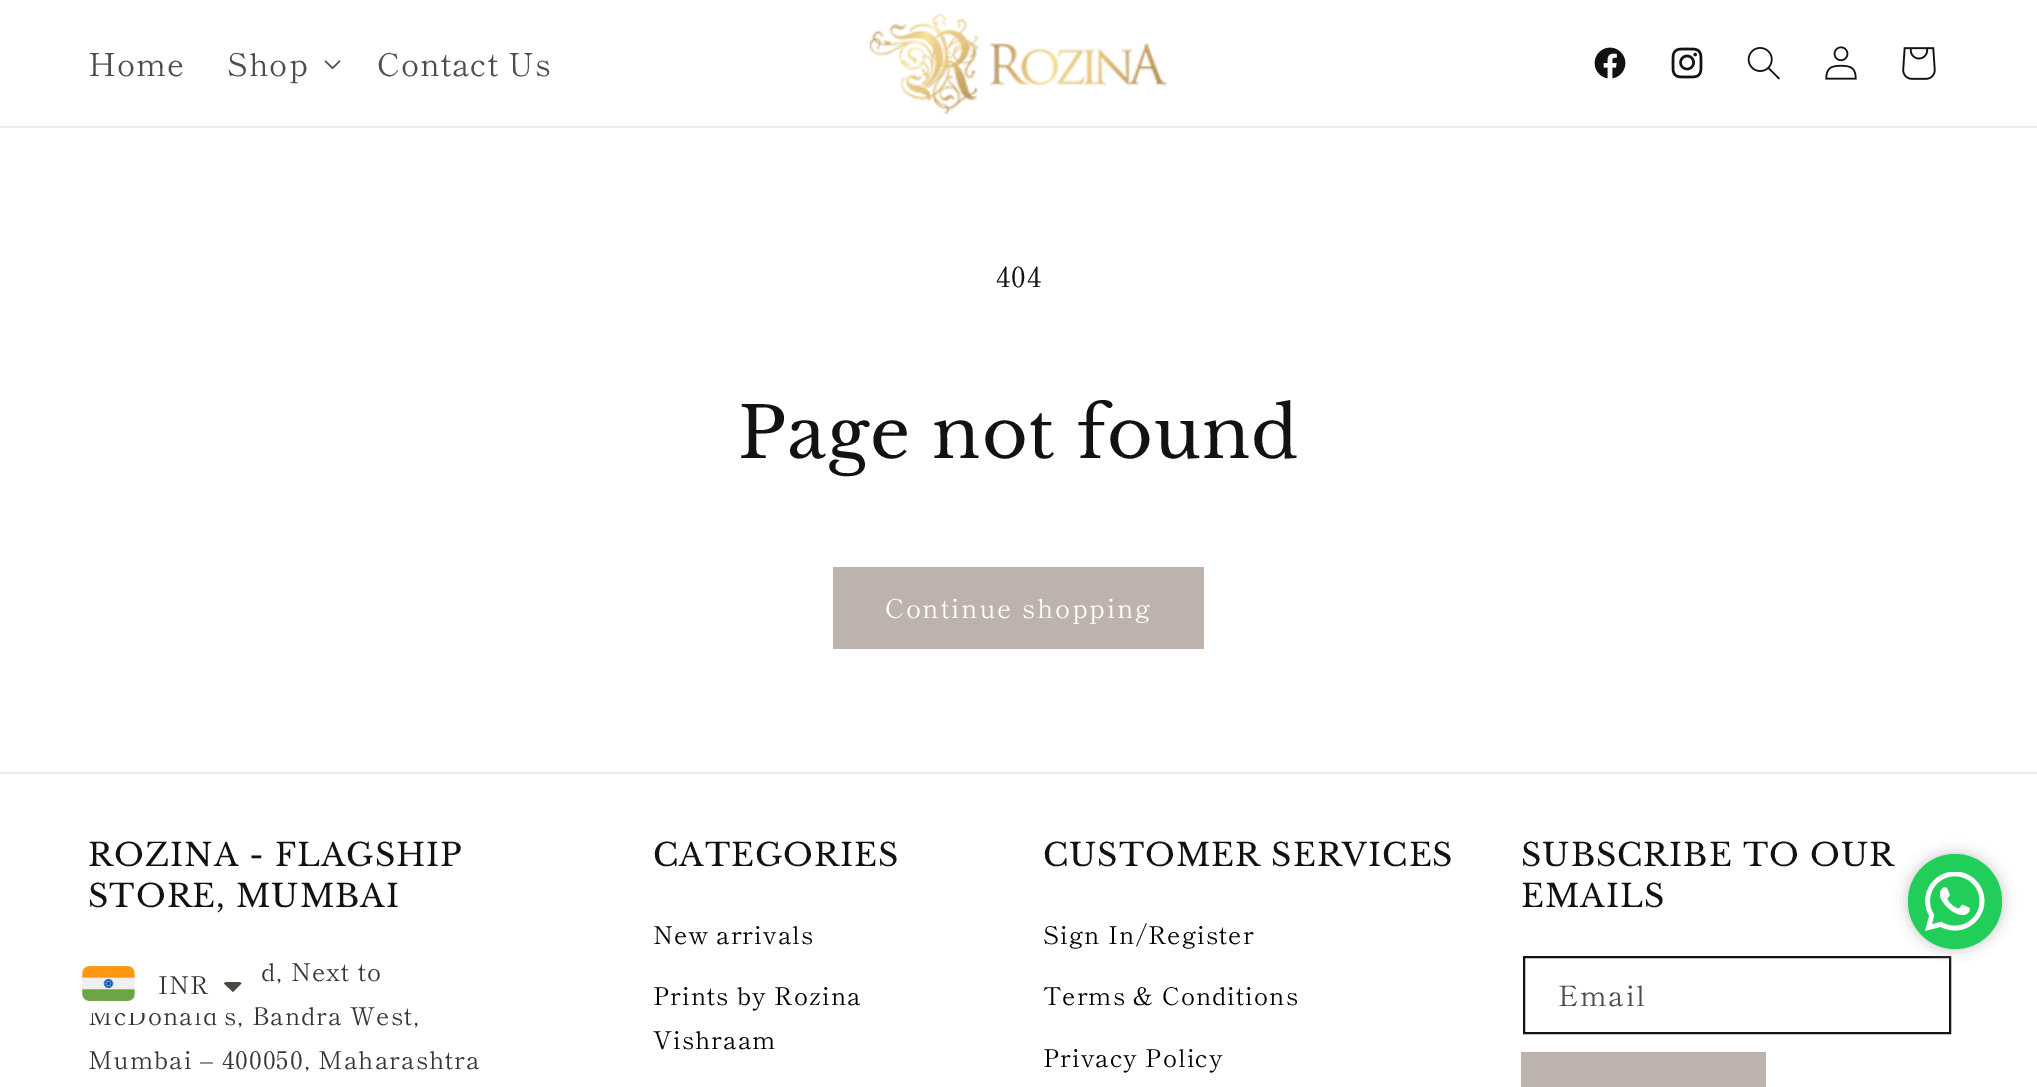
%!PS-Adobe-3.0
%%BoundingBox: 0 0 2037 1087
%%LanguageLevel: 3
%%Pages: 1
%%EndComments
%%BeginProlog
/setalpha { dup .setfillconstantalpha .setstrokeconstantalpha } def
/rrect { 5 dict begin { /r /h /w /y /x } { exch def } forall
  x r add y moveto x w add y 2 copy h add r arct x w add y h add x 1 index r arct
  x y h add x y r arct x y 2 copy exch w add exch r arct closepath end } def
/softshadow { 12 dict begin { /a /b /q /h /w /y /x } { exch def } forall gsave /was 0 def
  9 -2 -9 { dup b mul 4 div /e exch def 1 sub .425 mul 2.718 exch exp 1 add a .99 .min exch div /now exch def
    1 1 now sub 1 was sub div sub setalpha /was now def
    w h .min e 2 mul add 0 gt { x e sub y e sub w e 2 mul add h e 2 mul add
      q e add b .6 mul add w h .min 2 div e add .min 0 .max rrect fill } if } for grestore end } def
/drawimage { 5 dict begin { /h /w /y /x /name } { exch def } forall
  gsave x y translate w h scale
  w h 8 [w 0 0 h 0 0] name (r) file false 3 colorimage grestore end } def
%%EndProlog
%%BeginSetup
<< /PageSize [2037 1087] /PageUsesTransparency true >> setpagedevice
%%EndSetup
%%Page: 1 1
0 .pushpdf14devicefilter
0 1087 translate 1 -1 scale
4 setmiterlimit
1 setgray
0 0 2037 1087 rectfill
0.925 setgray
0 126 2037 2 rectfill
(images/1.raw) 324 60 17 10 drawimage
(images/2.raw) 869 13 299 101 drawimage
(images/3.raw) 1594 47 32 32 drawimage
(images/4.raw) 1671 47 32 32 drawimage
(images/5.raw) 1747 47 33 33 drawimage
(images/6.raw) 1825 46 32 34 drawimage
(images/7.raw) 1902 47 34 33 drawimage
0.741 0.698 0.675 setrgbcolor
833 567 371 82 rectfill
0.925 setgray
0 772 2037 2 rectfill
0.071 setgray
2 setlinewidth
1524 957 426 76 rectstroke
0.741 0.698 0.675 setrgbcolor
1521 1052 245 35 rectfill
0.761 setgray
1908 854 94 95 47 7 1 softshadow
0.133 0.808 0.353 setrgbcolor
1908 854 94 95 47 rrect fill
(images/8.raw) 1925 872 60 59 drawimage
/ShipporiMincho-Regular [31.5 0 0 -31.5 0 0] selectfont
0.302 setgray
88 76 moveto 1.05 0 (Home) ashow
227 76 moveto 1.05 0 (Shop) ashow
377 76 moveto 1.05 0 (Contact Us) ashow
/ShipporiMincho-Regular [28 0 0 -28 0 0] selectfont
0.071 setgray
996 287 moveto 1.05 0 (404) ashow
/LibreBaskerville-Regular [70 0 0 -70 0 0] selectfont
738 458 moveto 1.05 0 (Page not found) ashow
/ShipporiMincho-Regular [26.25 0 0 -26.25 0 0] selectfont
1 setgray
885 618 moveto 1.75 0 (Continue shopping) ashow
/LibreBaskerville-Regular [31.5 0 0 -31.5 0 0] selectfont
0.071 setgray
88 866 moveto 1.05 0 (ROZINA - FLAGSHIP) ashow
88 907 moveto 1.05 0 (STORE, MUMBAI) ashow
/ShipporiMincho-Regular [24.5 0 0 -24.5 0 0] selectfont
0.212 setgray
261 981 moveto 1.05 0 (d, Next to) ashow
88 1025 moveto 1.05 0 (McDonald’s, Bandra West,) ashow
88 1069 moveto 1.05 0 (Mumbai – 400050, Maharashtra) ashow
/LibreBaskerville-Regular [31.5 0 0 -31.5 0 0] selectfont
0.071 setgray
653 866 moveto 1.05 0 (CATEGORIES) ashow
/ShipporiMincho-Regular [24.5 0 0 -24.5 0 0] selectfont
0 setgray
653 944 moveto 1.05 0 (New arrivals) ashow
653 1005 moveto 1.05 0 (Prints by Rozina) ashow
653 1049 moveto 1.05 0 (Vishraam) ashow
/LibreBaskerville-Regular [31.5 0 0 -31.5 0 0] selectfont
0.071 setgray
1043 866 moveto 1.05 0 (CUSTOMER SERVICES) ashow
/ShipporiMincho-Regular [24.5 0 0 -24.5 0 0] selectfont
0 setgray
1043 944 moveto 1.05 0 (Sign In/Register) ashow
1043 1005 moveto 1.05 0 (Terms & Conditions) ashow
1043 1067 moveto 1.05 0 (Privacy Policy) ashow
/LibreBaskerville-Regular [31.5 0 0 -31.5 0 0] selectfont
0.071 setgray
1521 866 moveto 1.05 0 (SUBSCRIBE TO OUR) ashow
1521 907 moveto 1.05 0 (EMAILS) ashow
/ShipporiMincho-Regular [28 0 0 -28 0 0] selectfont
0.302 setgray
1558 1006 moveto 1.75 0 (Email) ashow
1 setgray
70 954 186 59 9 rrect fill
(images/9.raw) 82 966 54 35 drawimage
/ShipporiMincho-Regular [24.5 0 0 -24.5 0 0] selectfont
0.212 setgray
158 994 moveto 1.05 0 (INR) ashow
0.278 0.286 0.259 setrgbcolor
newpath 227.5 982 moveto 238 982 lineto 239.5 982 241 982.5 241.5 983.5 curveto 233 992 lineto 224 983.5 lineto 224.5 982.5 226 982 227.5 982 curveto closepath fill
.poppdf14devicefilter showpage
%%EOF
